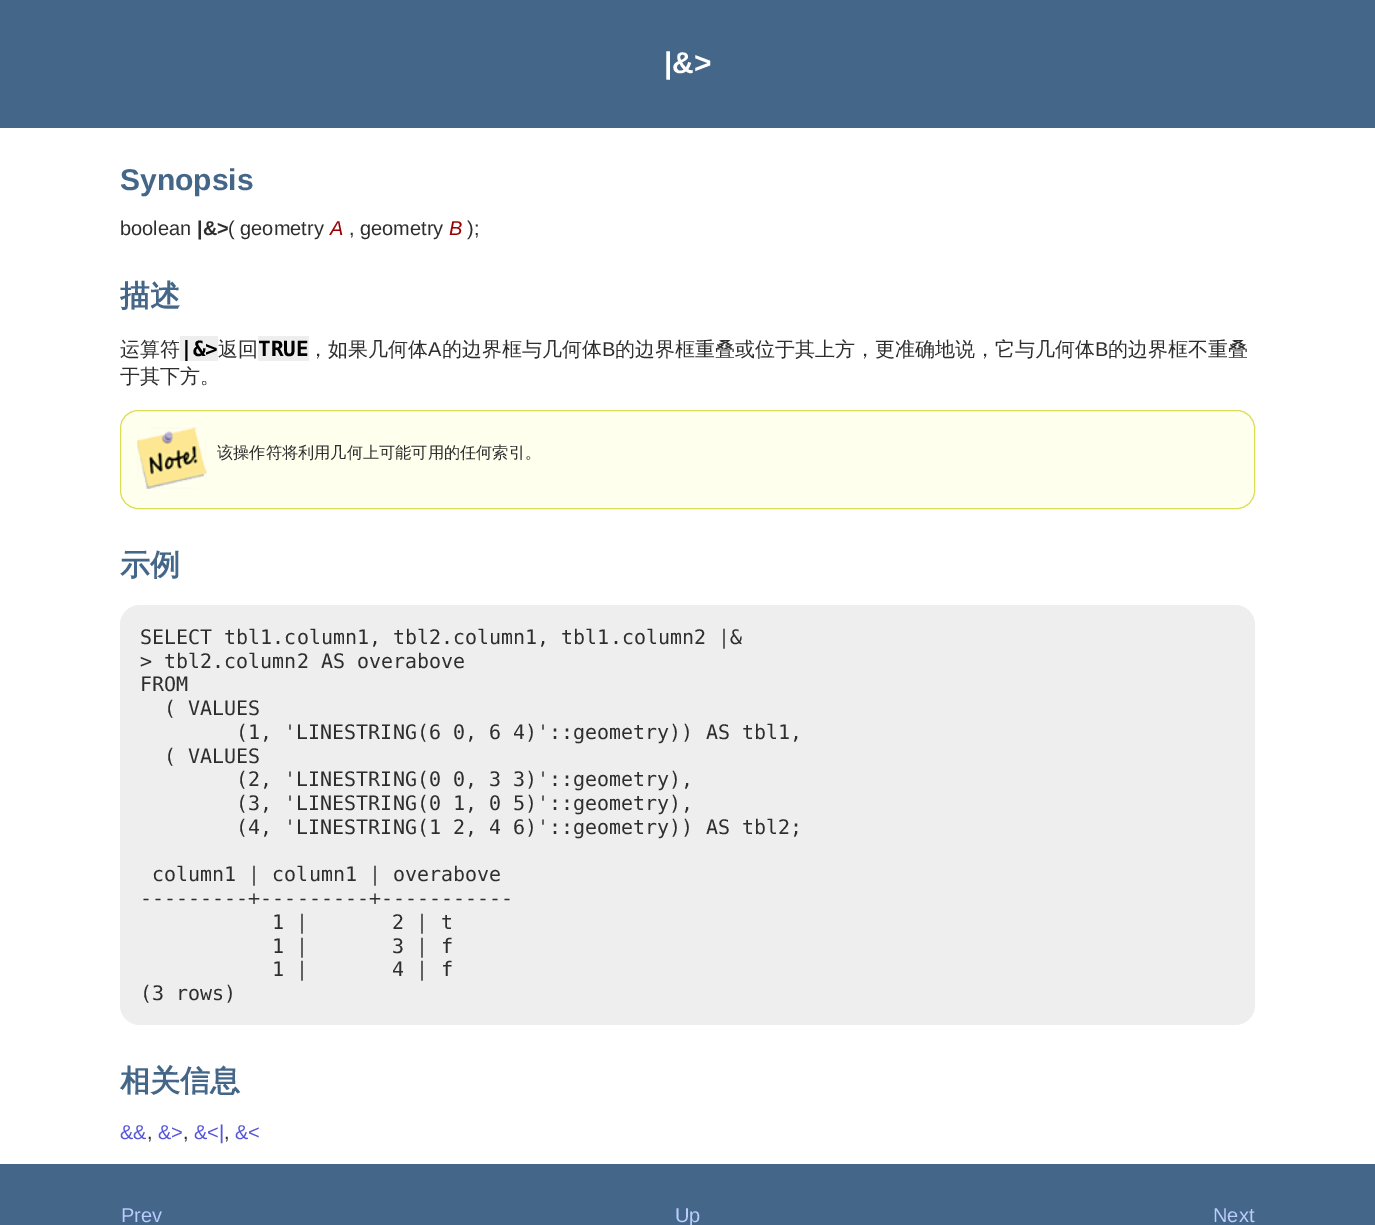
%!PS-Adobe-3.0
%%BoundingBox: 0 0 1375 1225
%%LanguageLevel: 3
%%Pages: 1
%%EndComments
%%BeginProlog
/rrect { 5 dict begin { /r /h /w /y /x } { exch def } forall
  x r add y moveto x w add y 2 copy h add r arct x w add y h add x 1 index r arct
  x y h add x y r arct x y 2 copy exch w add exch r arct closepath end } def
/drawimage { 5 dict begin { /h /w /y /x /name } { exch def } forall
  gsave x y translate w h scale
  w h 8 [w 0 0 h 0 0] name (r) file false 3 colorimage grestore end } def
%%EndProlog
%%BeginSetup
<< /PageSize [1375 1225] >> setpagedevice
%%EndSetup
%%Page: 1 1
0 1225 translate 1 -1 scale
4 setmiterlimit
1 setgray
0 0 1375 1225 rectfill
0.267 0.4 0.533 setrgbcolor
0 0 1375 128 rectfill
0.933 setgray
180 336 38 25 rectfill
258 336 51 25 rectfill
1 1 0.933 setrgbcolor
120.5 410.5 1134 98 17.5 rrect gsave fill grestore
0.867 0.867 0.333 setrgbcolor
stroke
(images/1.raw) 137 427 70 62 drawimage
0.933 setgray
120 605 1135 420 20 rrect fill
0.267 0.4 0.533 setrgbcolor
0 1164 1375 61 rectfill
/LiberationSans-Bold [30 0 0 -30 0 0] selectfont
1 setgray
664 73 moveto (|&>) show
0.267 0.4 0.533 setrgbcolor
120 190 moveto (Synopsis) show
/LiberationSans-Regular [20 0 0 -20 0 0] selectfont
0.18 setgray
120 235 moveto (boolean) show
/LiberationSans-Bold [20 0 0 -20 0 0] selectfont
197 235 moveto (|&>) show
/LiberationSans-Regular [20 0 0 -20 0 0] selectfont
228 235 moveto (\( geometry) show
/LiberationSans-Italic [20 0 0 -20 0 0] selectfont
0.6 0 0 setrgbcolor
330 235 moveto (A) show
/LiberationSans-Regular [20 0 0 -20 0 0] selectfont
0.18 setgray
349 235 moveto (, geometry) show
/LiberationSans-Italic [20 0 0 -20 0 0] selectfont
0.6 0 0 setrgbcolor
449 235 moveto (B) show
/LiberationSans-Regular [20 0 0 -20 0 0] selectfont
0.18 setgray
467 235 moveto (\);) show
/WenQuanYiZenHei-Bold [30 0 0 -30 0 0] selectfont
0.267 0.4 0.533 setrgbcolor
120 306 moveto (描述) show
/WenQuanYiZenHei-Medium [20 0 0 -20 0 0] selectfont
0.18 setgray
120 356 moveto (运算符) show
/DejaVuSansMono-Bold [21 0 0 -21 0 0] selectfont
0 setgray
180 356 moveto (|&>) show
/WenQuanYiZenHei-Medium [20 0 0 -20 0 0] selectfont
0.18 setgray
218 356 moveto (返回) show
/DejaVuSansMono-Bold [21 0 0 -21 0 0] selectfont
0 setgray
258 356 moveto (TRUE) show
/WenQuanYiZenHei-Medium [20 0 0 -20 0 0] selectfont
0.18 setgray
308 356 moveto (，如果几何体) show
/LiberationSans-Regular [20 0 0 -20 0 0] selectfont
428 356 moveto (A) show
/WenQuanYiZenHei-Medium [20 0 0 -20 0 0] selectfont
442 356 moveto (的边界框与几何体) show
/LiberationSans-Regular [20 0 0 -20 0 0] selectfont
602 356 moveto (B) show
/WenQuanYiZenHei-Medium [20 0 0 -20 0 0] selectfont
615 356 moveto (的边界框重叠或位于其上方，更准确地说，它与几何体) show
/LiberationSans-Regular [20 0 0 -20 0 0] selectfont
1095 356 moveto (B) show
/WenQuanYiZenHei-Medium [20 0 0 -20 0 0] selectfont
1108 356 moveto (的边界框不重叠) show
120 383 moveto (于其下方。) show
/WenQuanYiZenHei-Medium [16.2 0 0 -16.2 0 0] selectfont
217 458 moveto (该操作符将利用几何上可能可用的任何索引。) show
/WenQuanYiZenHei-Bold [30 0 0 -30 0 0] selectfont
0.267 0.4 0.533 setrgbcolor
120 575 moveto (示例) show
/DejaVuSansMono-Regular [20 0 0 -20 0 0] selectfont
0.18 setgray
140 644 moveto (SELECT tbl1.column1, tbl2.column1, tbl1.column2 |&) show
140 668 moveto (> tbl2.column2 AS overabove) show
140 691 moveto (FROM) show
164 715 moveto (\( VALUES) show
236 739 moveto (\(1, 'LINESTRING\(6 0, 6 4\)'::geometry\)\) AS tbl1,) show
164 763 moveto (\( VALUES) show
236 786 moveto (\(2, 'LINESTRING\(0 0, 3 3\)'::geometry\),) show
236 810 moveto (\(3, 'LINESTRING\(0 1, 0 5\)'::geometry\),) show
236 834 moveto (\(4, 'LINESTRING\(1 2, 4 6\)'::geometry\)\) AS tbl2;) show
152 881 moveto (column1 | column1 | overabove) show
140 905 moveto (---------+---------+-----------) show
272 929 moveto (1 |       2 | t) show
272 953 moveto (1 |       3 | f) show
272 976 moveto (1 |       4 | f) show
140 1000 moveto (\(3 rows\)) show
/WenQuanYiZenHei-Bold [30 0 0 -30 0 0] selectfont
0.267 0.4 0.533 setrgbcolor
120 1091 moveto (相关信息) show
/LiberationSans-Regular [20 0 0 -20 0 0] selectfont
0.333 0.333 0.867 setrgbcolor
120 1139 moveto (&&) show
0.18 setgray
147 1139 moveto (,) show
0.333 0.333 0.867 setrgbcolor
158 1139 moveto (&>) show
0.18 setgray
183 1139 moveto (,) show
0.333 0.333 0.867 setrgbcolor
194 1139 moveto (&<|) show
0.18 setgray
224 1139 moveto (,) show
0.333 0.333 0.867 setrgbcolor
235 1139 moveto (&<) show
0.733 0.8 1 setrgbcolor
121 1222 moveto (Prev) show
675 1222 moveto (Up) show
1213 1222 moveto (Next) show
showpage
%%EOF
